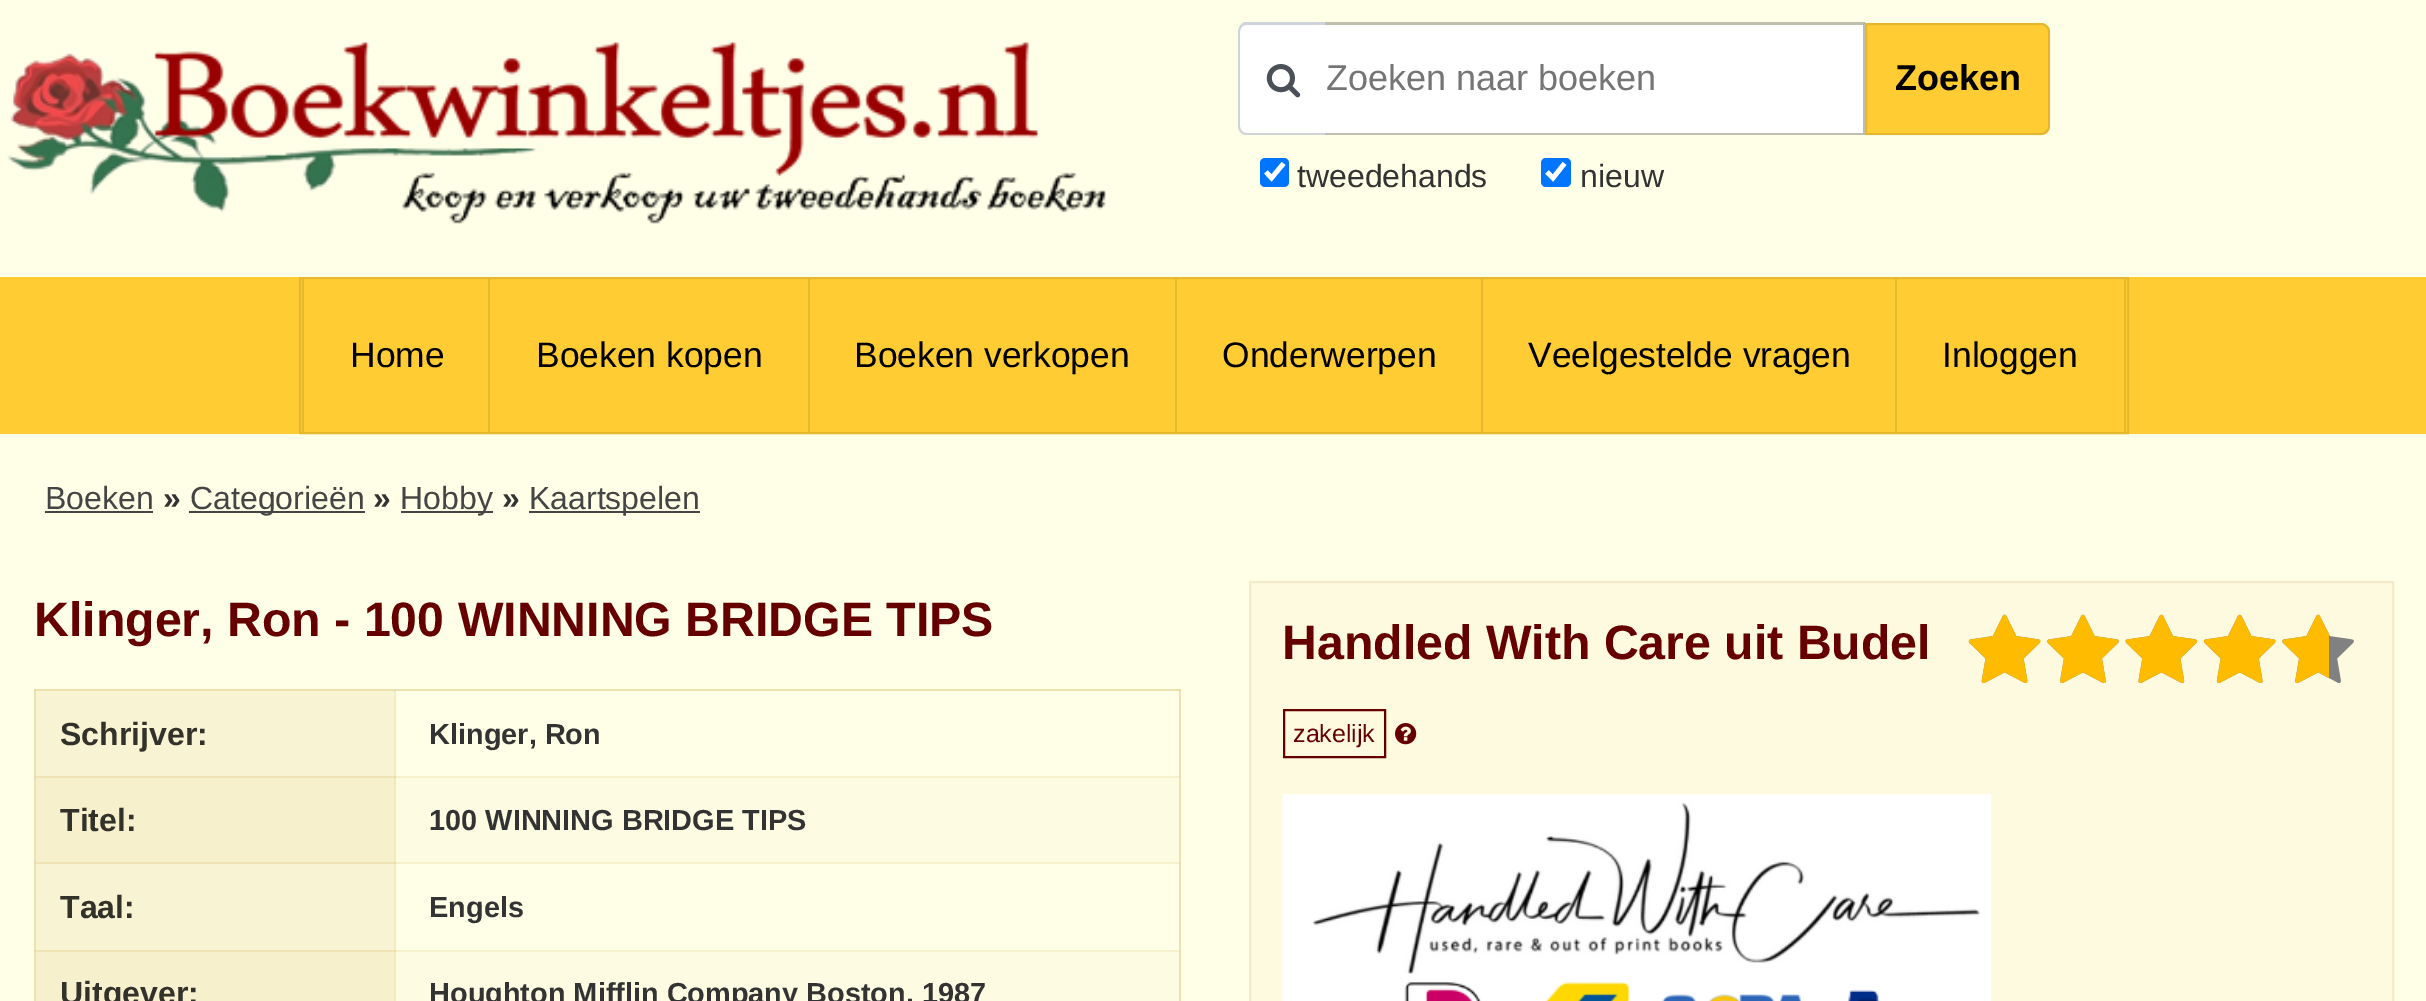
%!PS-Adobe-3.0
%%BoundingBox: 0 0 2426 1001
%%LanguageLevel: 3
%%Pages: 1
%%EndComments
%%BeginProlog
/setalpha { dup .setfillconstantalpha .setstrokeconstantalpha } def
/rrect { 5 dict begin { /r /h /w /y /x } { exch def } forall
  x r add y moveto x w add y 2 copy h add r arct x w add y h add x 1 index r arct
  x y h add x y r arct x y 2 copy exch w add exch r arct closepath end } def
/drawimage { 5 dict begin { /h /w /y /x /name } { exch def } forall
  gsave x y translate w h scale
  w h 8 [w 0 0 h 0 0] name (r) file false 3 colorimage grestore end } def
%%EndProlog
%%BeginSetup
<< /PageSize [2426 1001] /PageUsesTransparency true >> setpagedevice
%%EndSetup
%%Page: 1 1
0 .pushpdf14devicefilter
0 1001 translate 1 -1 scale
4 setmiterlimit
1 1 0.91 setrgbcolor
0 0 2426 1001 rectfill
0.933 0.882 0.69 setrgbcolor
34 689 2 312 rectfill
0.922 0.863 0.655 setrgbcolor
34 776 2 2 rectfill
34 862 2 2 rectfill
34 950 2 2 rectfill
0.933 0.882 0.69 setrgbcolor
1179 689 2 312 rectfill
0.925 0.871 0.667 setrgbcolor
1179 776 2 2 rectfill
1179 862 2 2 rectfill
1179 950 2 2 rectfill
(images/1.raw) 7 42 1099 182 drawimage
1 setgray
newpath 1247 23 moveto 1325 23 lineto 1325 135 lineto 1247 135 lineto 1242 135 1238 131 1238 126 curveto 1238 32 lineto 1238 27 1242 23 1247 23 curveto closepath fill
0.808 0.831 0.855 setrgbcolor
newpath 1246 22 moveto 1325 22 lineto 1325 135 lineto 1246 135 lineto 1242 135 1238 131 1238 126 curveto 1238 32 lineto 1238 27 1242 22 1246 22 curveto closepath 1246 25 moveto 1325 25 lineto 1325 133 lineto 1246 133 lineto 1243 133 1240 130 1240 126 curveto 1240 32 lineto 1240 28 1243 25 1246 25 curveto closepath eofill
(images/2.raw) 1266 64 35 34 drawimage
1 setgray
1325 25 538 108 rectfill
0.749 0.749 0.682 setrgbcolor
newpath 1325 22 moveto 1865 22 lineto 1863 25 lineto 1325 25 lineto closepath fill
0.25 setalpha
0 setgray
newpath 1865 22 moveto 1865 135 lineto 1863 133 lineto 1863 25 lineto closepath fill
newpath 1865 135 moveto 1325 135 lineto 1325 133 lineto 1863 133 lineto closepath fill
1 setalpha
1 0.8 0.2 setrgbcolor
newpath 1865 23 moveto 2041 23 lineto 2046 23 2050 27 2050 32 curveto 2050 126 lineto 2050 131 2046 135 2041 135 curveto 1865 135 lineto closepath fill
0.1 setalpha
0 setgray
2 setlinewidth
newpath 1866 24 moveto 2041 24 lineto 2045.5 24 2049 27.5 2049 32 curveto 2049 126 lineto 2049 130.5 2045.5 134 2041 134 curveto 1866 134 lineto closepath stroke
1 setalpha
0 0.459 1 setrgbcolor
1260 158 29 29 5 rrect fill
1 setgray
4.7 setlinewidth
newpath 1266 172 moveto 1271.5 178 lineto 1283.5 163.5 lineto stroke
0 0.459 1 setrgbcolor
1541 158 30 29 5 rrect fill
1 setgray
newpath 1547 172 moveto 1553 178 lineto 1564.5 163.5 lineto stroke
1 0.8 0.2 setrgbcolor
0 277 2426 157 rectfill
0.902 0.722 0.18 setrgbcolor
2 setlinewidth
300 278 1828 155 rectstroke
488 279 2 153 rectfill
302 279 2 153 rectfill
808 279 2 153 rectfill
1175 279 2 153 rectfill
1481 279 2 153 rectfill
1895 279 2 153 rectfill
2124 279 2 153 rectfill
0.271 setgray
45 511 108 2 rectfill
189 511 176 2 rectfill
401 511 92 2 rectfill
529 511 171 2 rectfill
0.933 0.882 0.69 setrgbcolor
34 689 1147 2 rectfill
0.925 0.871 0.667 setrgbcolor
394 689 2 2 rectfill
0.918 0.855 0.635 setrgbcolor
34 689 2 2 rectfill
1179 689 2 2 rectfill
0.973 0.953 0.824 setrgbcolor
36 691 358 85 rectfill
0.953 0.922 0.761 setrgbcolor
394 691 2 85 rectfill
0.992 0.984 0.886 setrgbcolor
396 778 783 84 rectfill
0.969 0.941 0.804 setrgbcolor
394 776 785 2 rectfill
394 862 785 2 rectfill
36 778 358 84 rectfill
0.941 0.894 0.71 setrgbcolor
36 776 360 2 rectfill
36 862 360 2 rectfill
0.949 0.914 0.749 setrgbcolor
394 776 2 88 rectfill
0.937 0.894 0.71 setrgbcolor
394 776 2 3 rectfill
0.922 0.863 0.651 setrgbcolor
394 776 2 2 rectfill
394 862 2 2 rectfill
0.973 0.953 0.824 setrgbcolor
36 864 358 86 rectfill
0.953 0.922 0.761 setrgbcolor
394 864 2 86 rectfill
0.992 0.984 0.886 setrgbcolor
396 952 783 49 rectfill
0.969 0.941 0.804 setrgbcolor
394 950 785 2 rectfill
36 952 358 49 rectfill
0.941 0.894 0.71 setrgbcolor
36 950 360 2 rectfill
0.953 0.914 0.749 setrgbcolor
394 950 2 51 rectfill
0.922 0.863 0.651 setrgbcolor
394 950 2 2 rectfill
0.992 0.98 0.878 setrgbcolor
newpath 1250 582 moveto 2393 582 lineto 2393 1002 lineto 1250 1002 lineto closepath gsave fill grestore
0.953 0.918 0.784 setrgbcolor
stroke
0.4 0 0 setrgbcolor
1284 710 101 47 rectstroke
(images/3.raw) 1395 723 22 22 drawimage
(images/4.raw) 1968 614 386 69 drawimage
(images/5.raw) 1968 614 361 70 drawimage
(images/6.raw) 1282 794 710 207 drawimage
/LiberationSans-Regular [36 0 0 -36 0 0] selectfont
0.459 setgray
1326 90 moveto (Zoeken naar boeken) show
/LiberationSans-Bold [36 0 0 -36 0 0] selectfont
0 setgray
1895 90 moveto (Zoeken) show
/LiberationSans-Regular [32 0 0 -32 0 0] selectfont
0.2 setgray
1297 187 moveto (tweedehands) show
1580 187 moveto (nieuw) show
/LiberationSans-Regular [35.4 0 0 -35.4 0 0] selectfont
0 setgray
350 367 moveto (Home) show
536 367 moveto (Boeken kopen) show
854 367 moveto (Boeken verkopen) show
1222 367 moveto (Onderwerpen) show
1528 367 moveto (Veelgestelde vragen) show
1942 367 moveto (Inloggen) show
/LiberationSans-Regular [32 0 0 -32 0 0] selectfont
0.271 setgray
45 509 moveto (Boeken) show
/LiberationSans-Bold [32 0 0 -32 0 0] selectfont
0.2 setgray
163 509 moveto (») show
/LiberationSans-Regular [32 0 0 -32 0 0] selectfont
0.271 setgray
190 509 moveto (Categorieën) show
/LiberationSans-Bold [32 0 0 -32 0 0] selectfont
0.2 setgray
373 509 moveto (») show
/LiberationSans-Regular [32 0 0 -32 0 0] selectfont
0.271 setgray
400 509 moveto (Hobby) show
/LiberationSans-Bold [32 0 0 -32 0 0] selectfont
0.2 setgray
502 509 moveto (») show
/LiberationSans-Regular [32 0 0 -32 0 0] selectfont
0.271 setgray
529 509 moveto (Kaartspelen) show
/LiberationSans-Bold [48.25 0 0 -48.25 0 0] selectfont
0.4 0 0 setrgbcolor
34 636 moveto (Klinger, Ron - 100 WINNING BRIDGE TIPS) show
/LiberationSans-Bold [32 0 0 -32 0 0] selectfont
0.196 0.192 0.165 setrgbcolor
60 745 moveto (Schrijver:) show
/LiberationSans-Bold [28.9 0 0 -28.9 0 0] selectfont
0.2 setgray
429 744 moveto (Klinger, Ron) show
/LiberationSans-Bold [32 0 0 -32 0 0] selectfont
0.196 0.192 0.165 setrgbcolor
60 831 moveto (Titel:) show
/LiberationSans-Bold [28.9 0 0 -28.9 0 0] selectfont
0.2 setgray
429 830 moveto (100 WINNING BRIDGE TIPS) show
/LiberationSans-Bold [32 0 0 -32 0 0] selectfont
0.196 0.192 0.165 setrgbcolor
60 918 moveto (Taal:) show
/LiberationSans-Bold [28.9 0 0 -28.9 0 0] selectfont
0.2 setgray
429 917 moveto (Engels) show
/LiberationSans-Bold [32 0 0 -32 0 0] selectfont
0.196 0.192 0.165 setrgbcolor
60 1004 moveto (Uitgever:) show
/LiberationSans-Bold [28.9 0 0 -28.9 0 0] selectfont
0.2 setgray
429 1003 moveto (Houghton Mifflin Company Boston, 1987) show
/LiberationSans-Bold [48.25 0 0 -48.25 0 0] selectfont
0.4 0 0 setrgbcolor
1282 659 moveto (Handled With Care uit Budel) show
/LiberationSans-Regular [25 0 0 -25 0 0] selectfont
1293 742 moveto (zakelijk) show
.poppdf14devicefilter showpage
%%EOF
